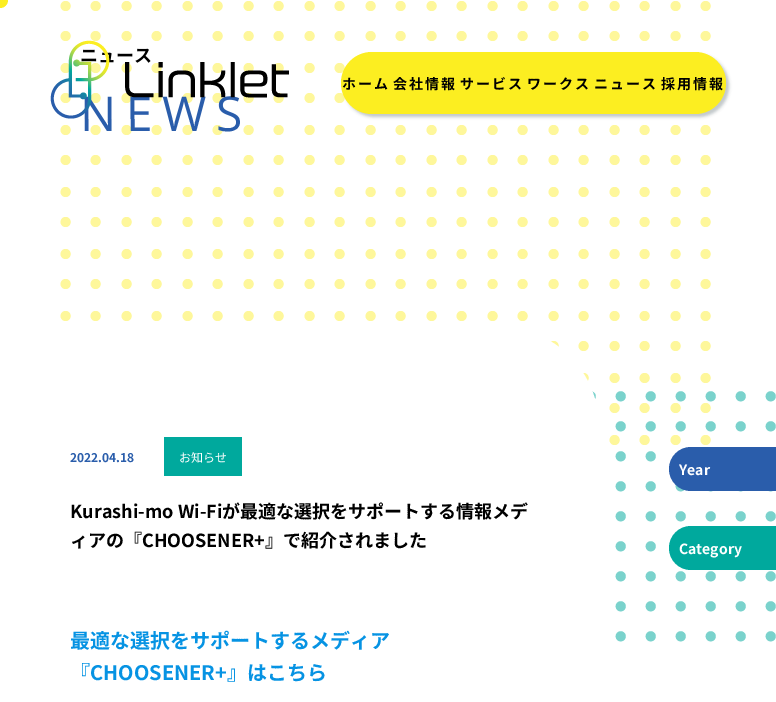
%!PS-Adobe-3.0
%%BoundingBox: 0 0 776 702
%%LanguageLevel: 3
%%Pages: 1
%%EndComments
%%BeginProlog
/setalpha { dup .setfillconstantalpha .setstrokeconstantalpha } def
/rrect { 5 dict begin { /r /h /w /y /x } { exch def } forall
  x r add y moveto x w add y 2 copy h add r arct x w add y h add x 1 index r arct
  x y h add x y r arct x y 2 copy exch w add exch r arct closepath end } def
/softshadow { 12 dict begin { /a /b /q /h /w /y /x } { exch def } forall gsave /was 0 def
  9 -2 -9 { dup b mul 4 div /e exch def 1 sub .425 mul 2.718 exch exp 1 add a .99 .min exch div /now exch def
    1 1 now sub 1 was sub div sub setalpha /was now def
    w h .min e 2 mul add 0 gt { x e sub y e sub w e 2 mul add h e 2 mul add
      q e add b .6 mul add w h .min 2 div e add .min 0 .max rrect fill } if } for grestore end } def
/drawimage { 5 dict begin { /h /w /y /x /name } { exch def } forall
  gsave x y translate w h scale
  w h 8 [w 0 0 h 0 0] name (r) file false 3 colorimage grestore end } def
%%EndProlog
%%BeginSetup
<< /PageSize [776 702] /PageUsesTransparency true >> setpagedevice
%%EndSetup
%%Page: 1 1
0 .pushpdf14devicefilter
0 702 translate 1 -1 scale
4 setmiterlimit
1 setgray
0 0 776 702 rectfill
0.988 0.933 0.129 setrgbcolor
newpath 0 0 8 0 360 arc closepath fill
(images/1.raw) 60 1 651 444 drawimage
0.686 0.722 0.729 setrgbcolor
344 55 385 62 31 1.5 0.75 softshadow
0.988 0.933 0.129 setrgbcolor
341 52 385 62 31 rrect fill
(images/3.raw) 592 391 184 251 drawimage
1 setgray
0 327 599 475 100 rrect fill
0 0.663 0.616 setrgbcolor
164 437 78 39 rectfill
0.165 0.365 0.671 setrgbcolor
669 447 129 44 22 rrect fill
0 0.663 0.616 setrgbcolor
669 526 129 44 22 rrect fill
/NotoSansJP-Bold [18 0 0 -18 0 0] selectfont
0 setgray
80 62 moveto (ニュース) show
/OpenSans-Regular [48 0 0 -48 0 0] selectfont
0.165 0.365 0.671 setrgbcolor
80 131 moveto 9.5 0 (NEWS) ashow
(images/2.raw) 50 40 239 79 drawimage
/NotoSansJP-Bold [14 0 0 -14 0 0] selectfont
0 setgray
342 89 moveto 2 0 (ホーム) ashow
393 89 moveto 2 0 (会社情報) ashow
460 89 moveto 2 0 (サービス) ashow
527 89 moveto 2 0 (ワークス) ashow
594 89 moveto 2 0 (ニュース) ashow
661 89 moveto 2 0 (採用情報) ashow
/NotoSansJP-Bold [12 0 0 -12 0 0] selectfont
0.165 0.365 0.671 setrgbcolor
70 462 moveto (2022.04.18) show
/NotoSansJP-Regular [12 0 0 -12 0 0] selectfont
1 setgray
179 462 moveto (お知らせ) show
/NotoSansJP-Bold [18 0 0 -18 0 0] selectfont
0 setgray
70 518 moveto (Kurashi-mo Wi-Fiが最適な選択をサポートする情報メデ) show
70 547 moveto (ィアの『CHOOSENER+』で紹介されました) show
/NotoSansJP-Bold [20 0 0 -20 0 0] selectfont
0.024 0.576 0.89 setrgbcolor
70 648 moveto (最適な選択をサポートするメディア) show
70 680 moveto (『CHOOSENER+』はこちら) show
/NotoSansJP-Bold [14 0 0 -14 0 0] selectfont
1 setgray
679 475 moveto (Year) show
679 554 moveto (Category) show
.poppdf14devicefilter showpage
%%EOF
